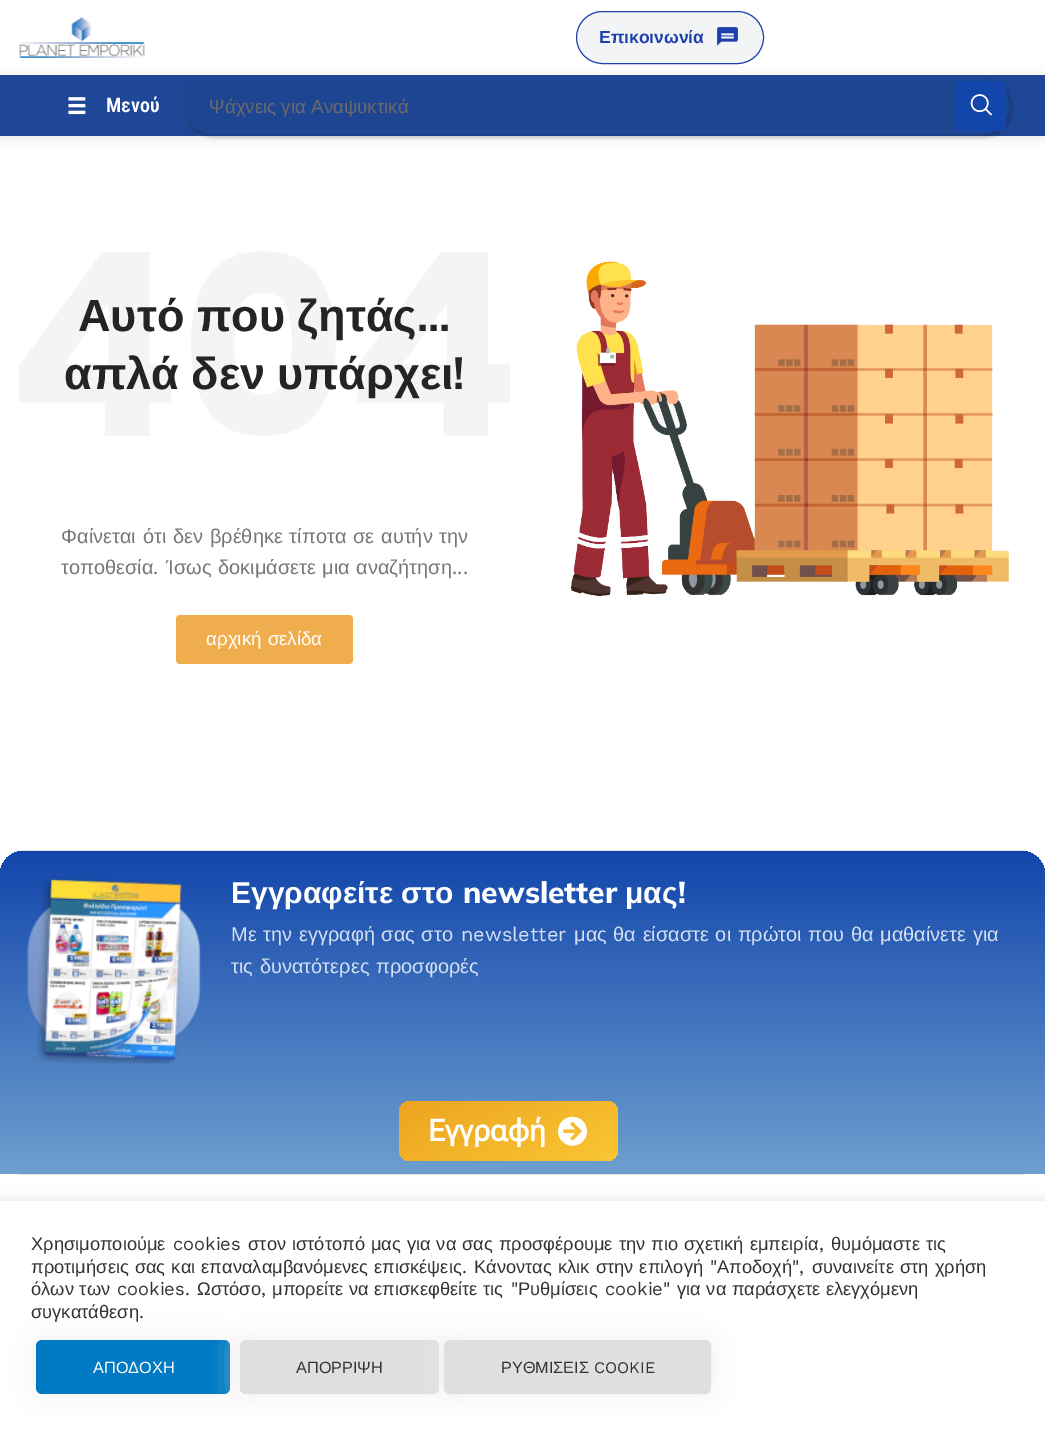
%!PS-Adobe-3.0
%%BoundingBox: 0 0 1045 1430
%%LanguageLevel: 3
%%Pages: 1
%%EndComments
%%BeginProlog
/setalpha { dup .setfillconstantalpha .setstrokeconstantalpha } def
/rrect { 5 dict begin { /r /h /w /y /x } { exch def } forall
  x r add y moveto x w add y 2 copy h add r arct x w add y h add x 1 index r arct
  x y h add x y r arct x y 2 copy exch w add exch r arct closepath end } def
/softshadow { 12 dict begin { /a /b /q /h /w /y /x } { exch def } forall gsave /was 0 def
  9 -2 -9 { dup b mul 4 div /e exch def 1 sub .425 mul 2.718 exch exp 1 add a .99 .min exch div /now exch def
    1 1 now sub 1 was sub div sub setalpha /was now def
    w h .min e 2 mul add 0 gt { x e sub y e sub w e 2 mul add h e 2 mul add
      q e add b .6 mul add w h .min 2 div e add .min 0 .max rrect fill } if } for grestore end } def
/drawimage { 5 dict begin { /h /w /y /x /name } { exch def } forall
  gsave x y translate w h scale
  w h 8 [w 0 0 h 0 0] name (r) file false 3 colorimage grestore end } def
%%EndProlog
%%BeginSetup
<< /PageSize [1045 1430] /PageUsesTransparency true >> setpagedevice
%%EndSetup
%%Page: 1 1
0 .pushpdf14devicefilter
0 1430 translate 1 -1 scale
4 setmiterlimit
1 setgray
0 0 1045 1430 rectfill
(images/1.raw) 19 17 126 41 drawimage
0 setgray
0 76 1045 62 0 5 0.1 softshadow
0.953 0.957 0.965 setrgbcolor
576.5 11.5 187 52 26 rrect gsave fill grestore
0.118 0.251 0.686 setrgbcolor
stroke
(images/2.raw) 717 27 21 19 drawimage
0.122 0.278 0.592 setrgbcolor
0 75 1045 61 rectfill
(images/3.raw) 68 97 18 18 drawimage
gsave
newpath 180 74 moveto 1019 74 lineto 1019 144 lineto 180 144 lineto closepath 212.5 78 moveto 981.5 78 lineto 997 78 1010 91 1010 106.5 curveto 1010 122 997 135 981.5 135 curveto 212.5 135 lineto 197 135 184 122 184 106.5 curveto 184 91 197 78 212.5 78 curveto closepath eoclip newpath
0 setgray
186 80 827 58 29 1.5 0.15 softshadow
grestore
0.04 setalpha
0.059 setgray
184 78 826 57 rectfill
1 setalpha
0.071 0.275 0.671 setrgbcolor
956 81 50 50 rectfill
(images/4.raw) 970 94 23 22 drawimage
(images/5.raw) 19 251 491 185 drawimage
0.941 0.678 0.306 setrgbcolor
176 615 177 49 4 rrect fill
(images/6.raw) 571 261 438 335 drawimage
0 setgray
0 851 1045 323 24 0.5 0.5 softshadow
gsave newpath 24 851 moveto 1021 851 lineto 1034.5 851 1045 861.5 1045 875 curveto 1045 1174 lineto 0 1174 lineto 0 875 lineto 0 861.5 10.5 851 24 851 curveto closepath clip newpath
<< /ShadingType 2 /ColorSpace /DeviceRGB /Coords [523 851 523 1174] /Extend [true true] /Function << /FunctionType 2 /Domain [0 1] /C0 [0.071 0.275 0.671] /C1 [0.427 0.624 0.812] /N 1 >> >> shfill grestore
(images/7.raw) 27 877 174 187 drawimage
gsave 399 1101 219 60 11 rrect clip newpath
<< /ShadingType 2 /ColorSpace /DeviceRGB /Coords [473 1063 543 1199] /Extend [true true] /Function << /FunctionType 2 /Domain [0 1] /C0 [0.929 0.643 0.129] /C1 [0.976 0.776 0.196] /N 1 >> >> shfill grestore
(images/8.raw) 558 1116 29 30 drawimage
0.675 0.671 0.671 setrgbcolor
0 1200 1045 229 0 6 0.3 softshadow
1 setgray
0 1201 1045 229 rectfill
0.933 setgray
36 1340 194 54 6 12.5 1 softshadow
0 0.478 0.761 setrgbcolor
36 1340 194 54 6 rrect fill
0.933 setgray
240 1340 199 54 6 12.5 1 softshadow
0.871 0.875 0.878 setrgbcolor
240 1340 199 54 6 rrect fill
0.933 setgray
444 1340 267 54 6 12.5 1 softshadow
0.871 0.875 0.878 setrgbcolor
444 1340 267 54 6 rrect fill
/LiberationSans-Bold [17.5 0 0 -17.5 0 0] selectfont
0.118 0.251 0.686 setrgbcolor
599 43 moveto (Επικοινωνία) show
/RobotoCondensed-SemiBold [20 0 0 -20 0 0] selectfont
1 setgray
106 112 moveto (Μενού) show
/LiberationSans-Regular [18.75 0 0 -18.75 0 0] selectfont
0.412 setgray
209 113 moveto (Ψάχνεις για Αναψυκτικά) show
/LiberationSans-Bold [45 0 0 -45 0 0] selectfont
0.141 setgray
78 331 moveto (Αυτό που ζητάς) show
/Mulish-Bold [45 0 0 -45 0 0] selectfont
417 331 moveto (...) show
/LiberationSans-Bold [45 0 0 -45 0 0] selectfont
64 389 moveto (απλά δεν υπάρχει) show
/Mulish-Bold [45 0 0 -45 0 0] selectfont
453 389 moveto (!) show
/LiberationSans-Regular [20 0 0 -20 0 0] selectfont
0.467 setgray
61 543 moveto 1.25 0 32 (Φαίνεται ότι δεν βρέθηκε τίποτα σε αυτήν την) widthshow
61 574 moveto (τοποθεσία) show
/WorkSans-Regular [20 0 0 -20 0 0] selectfont
153 574 moveto (.) show
/LiberationSans-Regular [20 0 0 -20 0 0] selectfont
166 574 moveto 1 0 32 (Ίσως δοκιμάσετε μια αναζήτηση) widthshow
/WorkSans-Regular [20 0 0 -20 0 0] selectfont
452 574 moveto (...) show
/LiberationSans-Regular [18.75 0 0 -18.75 0 0] selectfont
1 setgray
206 645 moveto 1 0 32 (αρχική σελίδα) widthshow
/LiberationSans-Bold [30 0 0 -30 0 0] selectfont
231 903 moveto (Εγγραφείτε στο) show
/Mulish-ExtraBold [30 0 0 -30 0 0] selectfont
463 903 moveto (newsletter) show
/LiberationSans-Bold [30 0 0 -30 0 0] selectfont
625 903 moveto (μας) show
/Mulish-ExtraBold [30 0 0 -30 0 0] selectfont
678 903 moveto (!) show
/LiberationSans-Regular [20 0 0 -20 0 0] selectfont
0.831 0.875 0.941 setrgbcolor
231 941 moveto 1 0 32 (Με την εγγραφή σας στο) widthshow
/WorkSans-Regular [20 0 0 -20 0 0] selectfont
461 941 moveto (newsletter) show
/LiberationSans-Regular [20 0 0 -20 0 0] selectfont
574 941 moveto 1 0 32 (μας θα είσαστε οι πρώτοι που θα μαθαίνετε για) widthshow
231 973 moveto 1.25 0 32 (τις δυνατότερες προσφορές) widthshow
/RobotoFlex-Bold [30 0 0 -30 0 0] selectfont
1 setgray
428 1141 moveto (Εγγραφή) show
/LiberationSans-Regular [18.3 0 0 -18.3 0 0] selectfont
0.2 setgray
31 1250 moveto (Χρησιμοποιούμε) show
/WorkSans-Regular [18.3 0 0 -18.3 0 0] selectfont
173 1250 moveto (cookies) show
/LiberationSans-Regular [18.3 0 0 -18.3 0 0] selectfont
248 1250 moveto 0.9 0 32 (στον ιστότοπό μας για να σας προσφέρουμε την πιο σχετική εμπειρία) widthshow
/WorkSans-Regular [18.3 0 0 -18.3 0 0] selectfont
819 1250 moveto (,) show
/LiberationSans-Regular [18.3 0 0 -18.3 0 0] selectfont
831 1250 moveto 0.9 0 32 (θυμόμαστε τις) widthshow
31 1273 moveto 1 0 32 (προτιμήσεις σας και επαναλαμβανόμενες επισκέψεις) widthshow
/WorkSans-Regular [18.3 0 0 -18.3 0 0] selectfont
462 1273 moveto (.) show
/LiberationSans-Regular [18.3 0 0 -18.3 0 0] selectfont
474 1273 moveto 1 0 32 (Κάνοντας κλικ στην επιλογή) widthshow
/WorkSans-Regular [18.3 0 0 -18.3 0 0] selectfont
710 1273 moveto (") show
/LiberationSans-Regular [18.3 0 0 -18.3 0 0] selectfont
717 1273 moveto (Αποδοχή) show
/WorkSans-Regular [18.3 0 0 -18.3 0 0] selectfont
792 1273 moveto (",) show
/LiberationSans-Regular [18.3 0 0 -18.3 0 0] selectfont
812 1273 moveto 1 0 32 (συναινείτε στη χρήση) widthshow
31 1295 moveto 0.5 0 32 (όλων των) widthshow
/WorkSans-Regular [18.3 0 0 -18.3 0 0] selectfont
117 1295 moveto (cookies.) show
/LiberationSans-Regular [18.3 0 0 -18.3 0 0] selectfont
197 1295 moveto (Ωστόσο) show
272 1295 moveto 0.5 0 32 (μπορείτε να επισκεφθείτε τις) widthshow
/WorkSans-Regular [18.3 0 0 -18.3 0 0] selectfont
511 1295 moveto (") show
/LiberationSans-Regular [18.3 0 0 -18.3 0 0] selectfont
518 1295 moveto (Ρυθμίσεις) show
/WorkSans-Regular [18.3 0 0 -18.3 0 0] selectfont
605 1295 moveto (cookie") show
/LiberationSans-Regular [18.3 0 0 -18.3 0 0] selectfont
677 1295 moveto 0.5 0 32 (για να παράσχετε ελεγχόμενη) widthshow
/WorkSans-Regular [18.3 0 0 -18.3 0 0] selectfont
261 1295 moveto (,) show
/LiberationSans-Regular [18.3 0 0 -18.3 0 0] selectfont
31 1318 moveto (συγκατάθεση) show
/WorkSans-Regular [18.3 0 0 -18.3 0 0] selectfont
139 1318 moveto (.) show
/LiberationSans-Regular [16.25 0 0 -16.25 0 0] selectfont
1 setgray
93 1373 moveto (ΑΠΟΔΟΧΗ) show
0.2 setgray
296 1373 moveto (ΑΠΟΡΡΙΨΗ) show
501 1373 moveto (ΡΥΘΜΙΣΕΙΣ) show
/WorkSans-Regular [16.25 0 0 -16.25 0 0] selectfont
594 1373 moveto (COOKIE) show
.poppdf14devicefilter showpage
%%EOF
